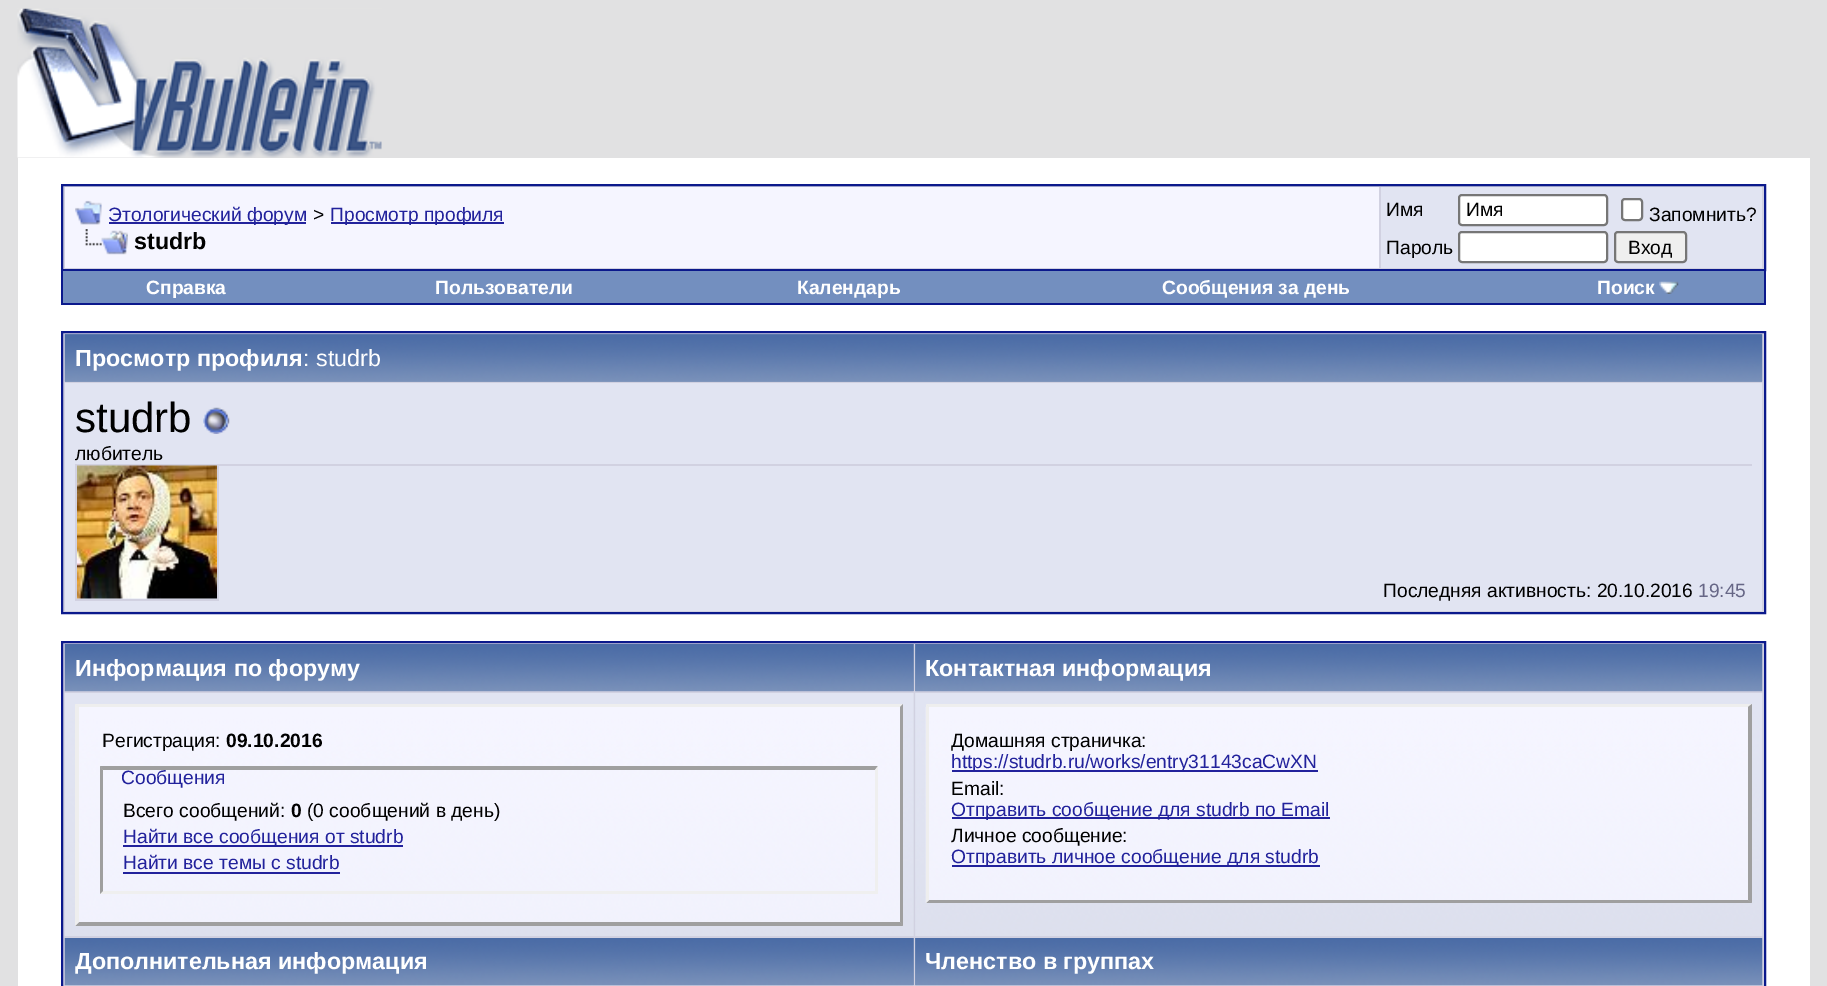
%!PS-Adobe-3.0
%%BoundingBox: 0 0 1827 986
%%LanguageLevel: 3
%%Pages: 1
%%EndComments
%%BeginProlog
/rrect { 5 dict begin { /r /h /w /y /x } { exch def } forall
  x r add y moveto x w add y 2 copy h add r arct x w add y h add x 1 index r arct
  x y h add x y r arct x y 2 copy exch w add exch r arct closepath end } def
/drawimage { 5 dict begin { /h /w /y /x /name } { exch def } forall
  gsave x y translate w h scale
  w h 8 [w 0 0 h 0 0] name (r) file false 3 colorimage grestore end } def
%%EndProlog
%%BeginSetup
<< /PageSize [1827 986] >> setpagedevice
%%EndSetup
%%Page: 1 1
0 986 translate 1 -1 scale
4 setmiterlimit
0.882 0.882 0.886 setrgbcolor
0 0 1827 986 rectfill
(images/1.raw) 17 8 365 150 drawimage
1 setgray
18 158 1792 828 rectfill
0.82 0.82 0.882 setrgbcolor
newpath 62 185 moveto 1765 185 lineto 1765 270 lineto 62 270 lineto closepath gsave fill grestore
0.043 0.098 0.549 setrgbcolor
2 setlinewidth
stroke
0.961 0.961 1 setrgbcolor
65 187 1314 81 rectfill
(images/2.raw) 75 200 27 25 drawimage
0.133 0.133 0.612 setrgbcolor
109 222 197 2 rectfill
331 222 173 2 rectfill
(images/3.raw) 85 229 43 26 drawimage
0.882 0.894 0.949 setrgbcolor
1381 187 381 81 rectfill
1 setgray
1459 195 148 30 3 rrect gsave fill grestore
0.463 setgray
stroke
1 setgray
1622 199 20 21 3 rrect gsave fill grestore
0.463 setgray
stroke
1 setgray
1459 232 148 30 3 rrect gsave fill grestore
0.463 setgray
stroke
0.937 setgray
1615 232 71 30 3 rrect gsave fill grestore
0.463 setgray
stroke
0.043 0.098 0.549 setrgbcolor
1764 271 2 34 rectfill
61 303 1705 2 rectfill
61 271 2 34 rectfill
0.451 0.561 0.749 setrgbcolor
63 271 1701 32 rectfill
(images/4.raw) 1659 281 20 13 drawimage
0.82 0.82 0.882 setrgbcolor
newpath 62 332 moveto 1765 332 lineto 1765 613 lineto 62 613 lineto closepath gsave fill grestore
0.043 0.098 0.549 setrgbcolor
stroke
0.525 0.608 0.749 setrgbcolor
65 334 1697 48 rectfill
(images/5.raw) 64 334 1699 48 drawimage
0.882 0.894 0.949 setrgbcolor
65 383 1697 228 rectfill
0.82 0.82 0.882 setrgbcolor
75 464 1677 2 rectfill
(images/6.raw) 203 407 27 27 drawimage
217 466 2 134 rectfill
75 599 144 2 rectfill
75 466 2 134 rectfill
(images/7.raw) 77 465 140 134 drawimage
newpath 62 642 moveto 1765 642 lineto 1765 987 lineto 62 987 lineto closepath gsave fill grestore
0.043 0.098 0.549 setrgbcolor
stroke
0.525 0.608 0.749 setrgbcolor
913 644 1 47 rectfill
(images/8.raw) 64 644 850 48 drawimage
(images/9.raw) 915 644 848 48 drawimage
0.835 0.847 0.898 setrgbcolor
913 693 1 243 rectfill
(images/10.raw) 64 693 850 243 drawimage
(images/11.raw) 75 707 828 219 drawimage
0.933 setgray
newpath 75 704 moveto 903 704 lineto 900 707 lineto 79 707 lineto closepath fill
0.624 setgray
newpath 903 704 moveto 903 926 lineto 900 922 lineto 900 707 lineto closepath fill
newpath 903 926 moveto 75 926 lineto 79 922 lineto 900 922 lineto closepath fill
0.933 setgray
newpath 75 926 moveto 75 704 lineto 79 707 lineto 79 922 lineto closepath fill
0.624 setgray
newpath 100 766 moveto 878 766 lineto 875 770 lineto 103 770 lineto closepath fill
0.937 setgray
newpath 878 766 moveto 878 894 lineto 875 891 lineto 875 770 lineto closepath fill
newpath 878 894 moveto 100 894 lineto 103 891 lineto 875 891 lineto closepath fill
0.624 setgray
newpath 100 894 moveto 100 766 lineto 103 770 lineto 103 891 lineto closepath fill
0.133 0.133 0.612 setrgbcolor
123 845 280 2 rectfill
123 872 217 2 rectfill
(images/12.raw) 915 693 848 243 drawimage
(images/13.raw) 925 707 827 196 drawimage
0.933 setgray
newpath 926 704 moveto 1752 704 lineto 1748 707 lineto 929 707 lineto closepath fill
0.624 setgray
newpath 1752 704 moveto 1752 903 lineto 1748 900 lineto 1748 707 lineto closepath fill
newpath 1752 903 moveto 926 903 lineto 929 900 lineto 1748 900 lineto closepath fill
0.933 setgray
newpath 926 903 moveto 926 704 lineto 929 707 lineto 929 900 lineto closepath fill
0.133 0.133 0.612 setrgbcolor
952 770 366 2 rectfill
952 817 378 2 rectfill
952 865 368 2 rectfill
0.525 0.608 0.749 setrgbcolor
913 938 1 47 rectfill
(images/14.raw) 64 938 850 48 drawimage
(images/15.raw) 915 938 848 48 drawimage
/LiberationSans-Regular [19.25 0 0 -19.25 0 0] selectfont
0.133 0.133 0.612 setrgbcolor
108 221 moveto (Этологический форум) show
0 setgray
313 221 moveto (>) show
0.133 0.133 0.612 setrgbcolor
330 221 moveto (Просмотр профиля) show
/LiberationSans-Bold [23.3 0 0 -23.3 0 0] selectfont
0 setgray
134 249 moveto (studrb) show
/LiberationSans-Regular [19.25 0 0 -19.25 0 0] selectfont
1386 216 moveto (Имя) show
1466 216 moveto (Имя) show
1649 221 moveto (Запомнить?) show
1386 254 moveto (Пароль) show
1628 254 moveto (Вход) show
/LiberationSans-Bold [19.25 0 0 -19.25 0 0] selectfont
1 setgray
146 294 moveto (Справка) show
435 294 moveto (Пользователи) show
797 294 moveto (Календарь) show
1162 294 moveto (Сообщения за день) show
1597 294 moveto (Поиск) show
/LiberationSans-Bold [23.3 0 0 -23.3 0 0] selectfont
75 366 moveto (Просмотр профиля) show
/LiberationSans-Regular [23.3 0 0 -23.3 0 0] selectfont
303 366 moveto (: studrb) show
/LiberationSans-Regular [42 0 0 -42 0 0] selectfont
0 setgray
75 432 moveto (studrb) show
/LiberationSans-Regular [19.25 0 0 -19.25 0 0] selectfont
75 460 moveto (любитель) show
1383 597 moveto (Последняя активность: 20.10.2016) show
0.4 0.4 0.525 setrgbcolor
1698 597 moveto (19:45) show
/LiberationSans-Bold [23.3 0 0 -23.3 0 0] selectfont
1 setgray
75 676 moveto (Информация по форуму) show
925 676 moveto (Контактная информация) show
/LiberationSans-Regular [19.25 0 0 -19.25 0 0] selectfont
0 setgray
102 747 moveto (Регистрация:) show
/LiberationSans-Bold [19.25 0 0 -19.25 0 0] selectfont
226 747 moveto (09.10.2016) show
/LiberationSans-Regular [19.25 0 0 -19.25 0 0] selectfont
0.133 0.133 0.612 setrgbcolor
121 784 moveto (Сообщения) show
0 setgray
123 817 moveto (Всего сообщений:) show
/LiberationSans-Bold [19.25 0 0 -19.25 0 0] selectfont
291 817 moveto (0) show
/LiberationSans-Regular [19.25 0 0 -19.25 0 0] selectfont
307 817 moveto (\(0 сообщений в день\)) show
0.133 0.133 0.612 setrgbcolor
123 843 moveto (Найти все сообщения от studrb) show
123 869 moveto (Найти все темы с studrb) show
0 setgray
951 747 moveto (Домашняя страничка:) show
0.133 0.133 0.612 setrgbcolor
951 768 moveto (https://studrb.ru/works/entry31143caCwXN) show
0 setgray
951 795 moveto (Email:) show
0.133 0.133 0.612 setrgbcolor
951 816 moveto (Отправить сообщение для studrb по Email) show
0 setgray
951 842 moveto (Личное сообщение:) show
0.133 0.133 0.612 setrgbcolor
951 863 moveto (Отправить личное сообщение для studrb) show
/LiberationSans-Bold [23.3 0 0 -23.3 0 0] selectfont
1 setgray
75 969 moveto (Дополнительная информация) show
925 969 moveto (Членство в группах) show
showpage
%%EOF
